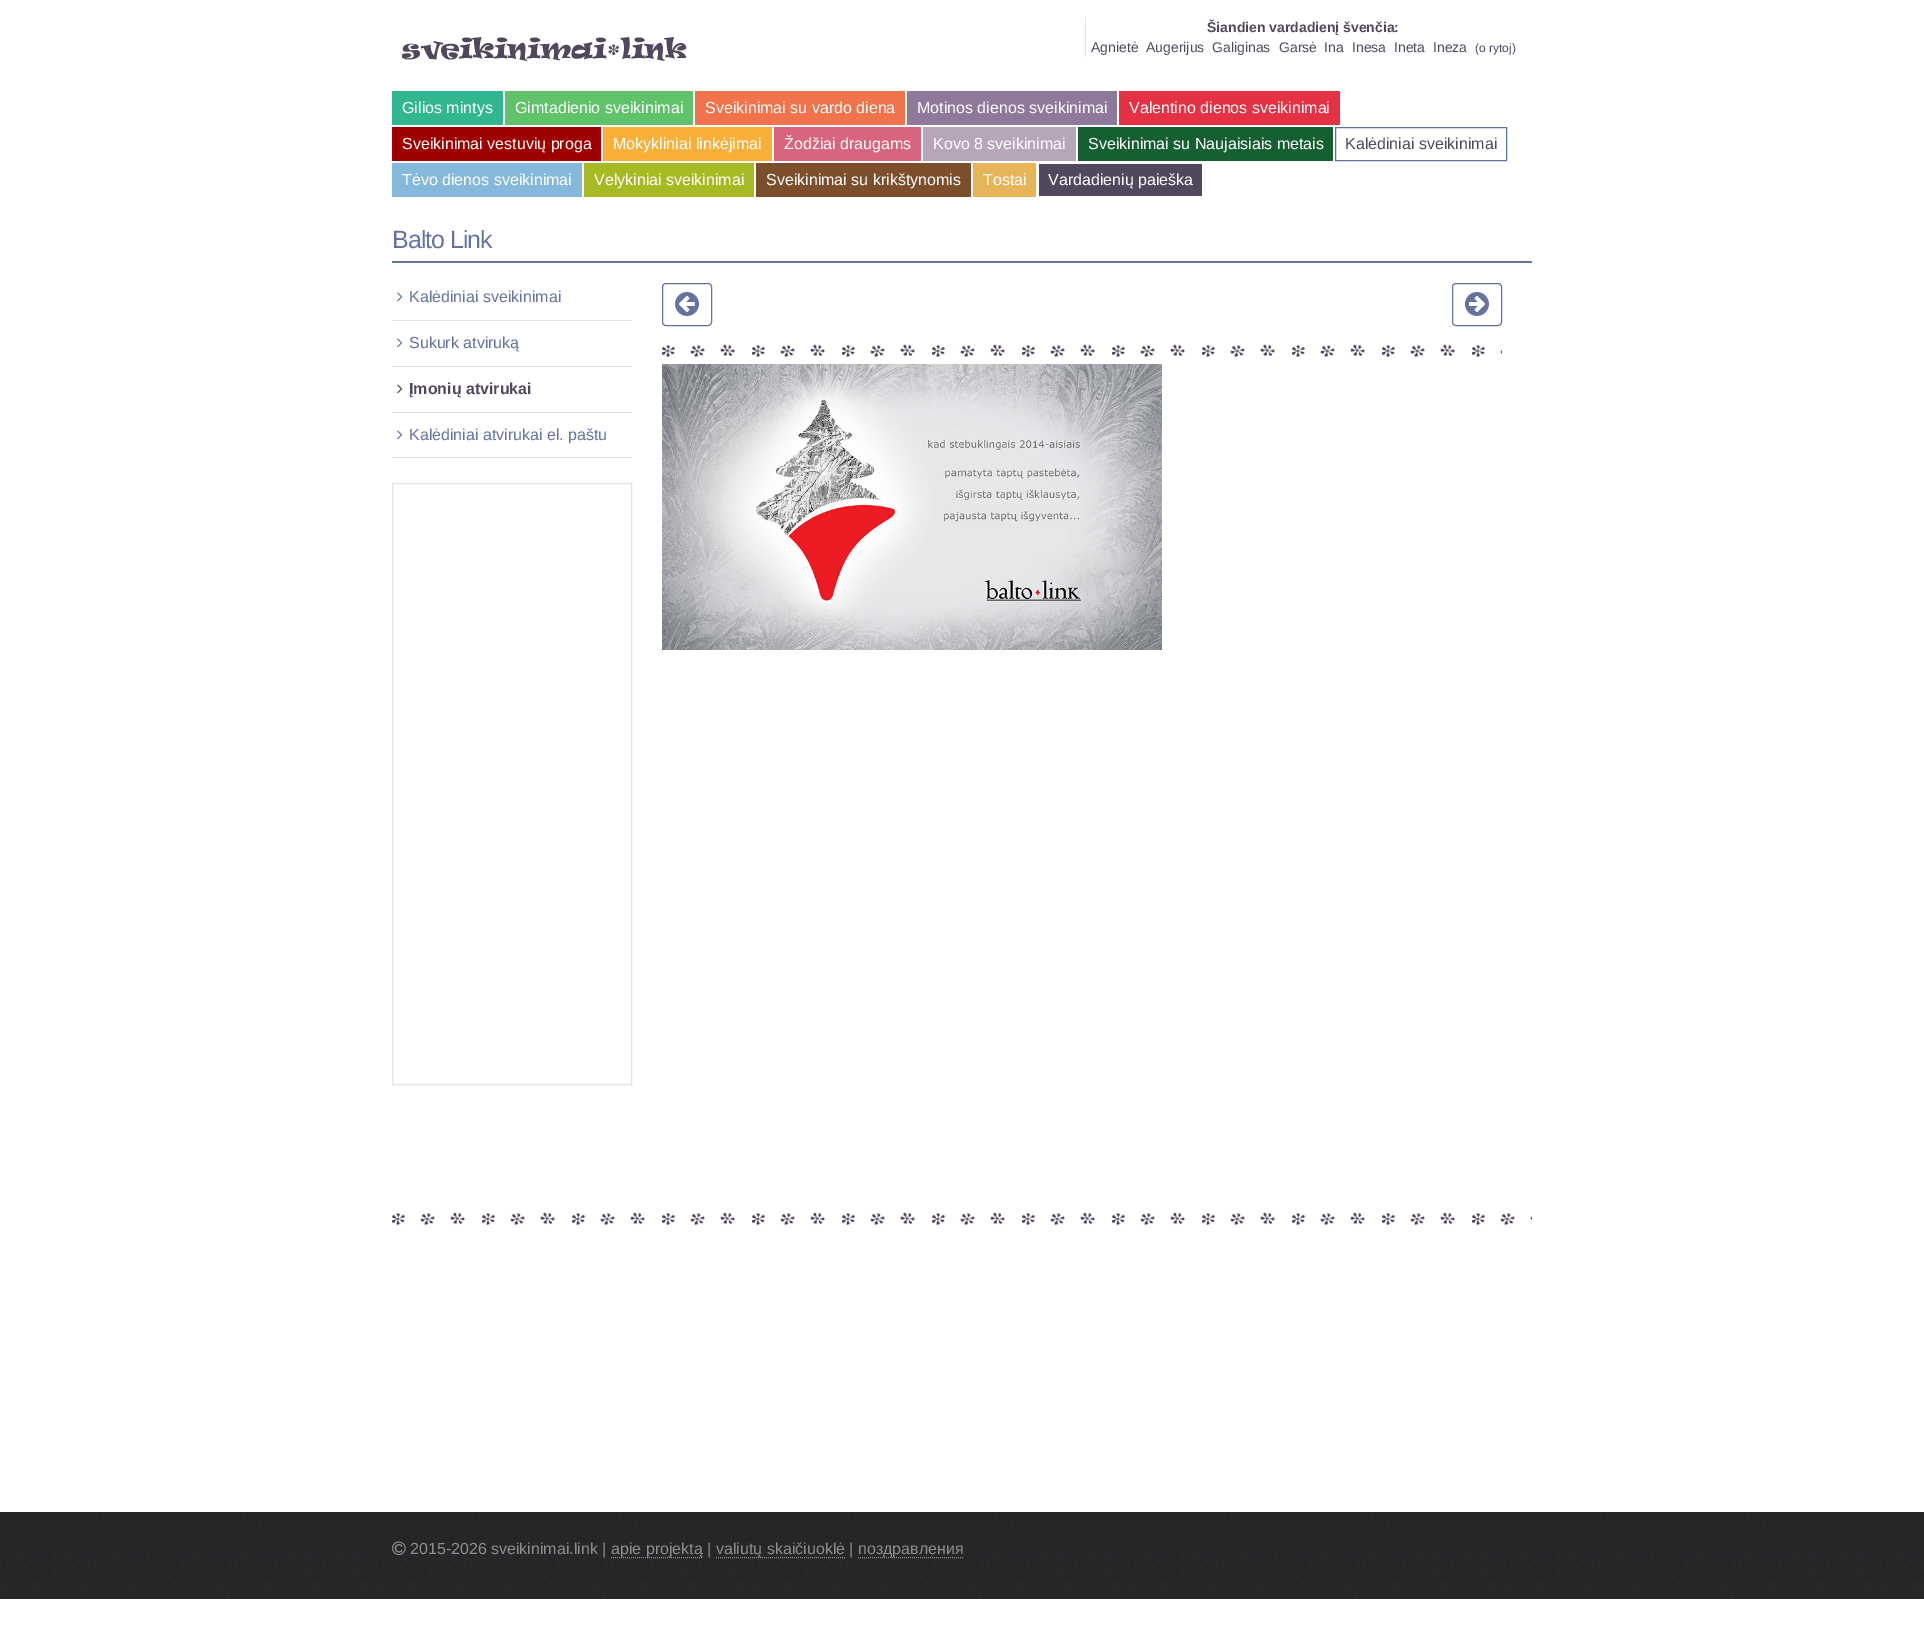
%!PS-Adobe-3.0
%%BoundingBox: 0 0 1924 1637
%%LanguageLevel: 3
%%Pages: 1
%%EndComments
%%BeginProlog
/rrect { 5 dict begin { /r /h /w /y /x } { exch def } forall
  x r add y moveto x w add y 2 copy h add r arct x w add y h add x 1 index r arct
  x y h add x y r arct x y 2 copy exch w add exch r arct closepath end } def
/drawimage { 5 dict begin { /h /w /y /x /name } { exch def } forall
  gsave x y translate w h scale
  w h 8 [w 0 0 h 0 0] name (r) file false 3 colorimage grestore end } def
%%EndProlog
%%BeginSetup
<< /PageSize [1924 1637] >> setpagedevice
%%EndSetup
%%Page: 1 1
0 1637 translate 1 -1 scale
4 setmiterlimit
1 setgray
0 0 1924 1637 rectfill
(images/1.raw) 402 37 285 24 drawimage
0.89 setgray
1085 17 1 40 rectfill
0.196 0.714 0.565 setrgbcolor
392 91 111 34 rectfill
0.376 0.765 0.42 setrgbcolor
505 91 188 34 rectfill
0.941 0.451 0.294 setrgbcolor
695 91 210 34 rectfill
0.561 0.475 0.604 setrgbcolor
907 91 210 34 rectfill
0.894 0.196 0.267 setrgbcolor
1119 91 221 34 rectfill
0.62 0 0 setrgbcolor
392 127 209 34 rectfill
0.973 0.69 0.224 setrgbcolor
603 127 169 34 rectfill
0.847 0.392 0.49 setrgbcolor
774 127 147 34 rectfill
0.718 0.651 0.729 setrgbcolor
923 127 153 34 rectfill
0.086 0.373 0.192 setrgbcolor
1078 127 255 34 rectfill
0.4 0.451 0.624 setrgbcolor
1335.5 127.5 171 33 rectstroke
0.522 0.722 0.859 setrgbcolor
392 163 190 34 rectfill
0.655 0.729 0.141 setrgbcolor
584 163 170 34 rectfill
0.49 0.306 0.169 setrgbcolor
756 163 215 34 rectfill
0.91 0.706 0.349 setrgbcolor
973 163 63 34 rectfill
0.322 0.282 0.369 setrgbcolor
1039 164 163 32 rectfill
0.4 0.451 0.624 setrgbcolor
392 261 1140 2 rectfill
(images/2.raw) 397 292 6 10 drawimage
0.89 setgray
392 320 240 1 rectfill
(images/2.raw) 397 338 6 10 drawimage
392 366 240 1 rectfill
(images/3.raw) 397 384 6 10 drawimage
392 412 240 1 rectfill
392 457 240 1 rectfill
(images/2.raw) 397 430 6 10 drawimage
392.5 483.5 239 601 rectstroke
0.4 0.451 0.624 setrgbcolor
662.5 283.5 49 42 3.5 rrect stroke
(images/4.raw) 675 292 24 24 drawimage
1452.5 283.5 49 42 3.5 rrect stroke
(images/5.raw) 1465 292 24 24 drawimage
(images/6.raw) 662 344 840 13 drawimage
(images/7.raw) 662 364 500 286 drawimage
(images/8.raw) 392 1212 1140 13 drawimage
(images/9.raw) 0 1512 1924 87 drawimage
(images/10.raw) 392 1541 14 15 drawimage
0.557 setgray
[1 1] 0 setdash
newpath 611 1557.5 moveto 703 1557.5 lineto stroke
newpath 716 1557.5 moveto 845 1557.5 lineto stroke
newpath 858 1557.5 moveto 963 1557.5 lineto stroke
/LiberationSans-Bold [14 0 0 -14 0 0] selectfont
0.322 0.282 0.369 setrgbcolor
1207 32 moveto (Šiandien vardadienį švenčia:) show
/LiberationSans-Regular [14 0 0 -14 0 0] selectfont
1091 52 moveto (Agnietė) show
1146 52 moveto (Augerijus) show
1212 52 moveto (Galiginas) show
1279 52 moveto (Garsė) show
1324 52 moveto (Ina) show
1352 52 moveto (Inesa) show
1394 52 moveto (Ineta) show
1433 52 moveto (Ineza) show
/LiberationSans-Regular [12 0 0 -12 0 0] selectfont
1475 52 moveto (\(o rytoj\)) show
/LiberationSans-Regular [16 0 0 -16 0 0] selectfont
1 setgray
402 113 moveto (Gilios mintys) show
515 113 moveto (Gimtadienio sveikinimai) show
705 113 moveto (Sveikinimai su vardo diena) show
917 113 moveto (Motinos dienos sveikinimai) show
1129 113 moveto (Valentino dienos sveikinimai) show
402 149 moveto (Sveikinimai vestuvių proga) show
613 149 moveto (Mokykliniai linkėjimai) show
784 149 moveto (Žodžiai draugams) show
933 149 moveto (Kovo 8 sveikinimai) show
1088 149 moveto (Sveikinimai su Naujaisiais metais) show
0.322 0.282 0.369 setrgbcolor
1345 149 moveto (Kalėdiniai sveikinimai) show
1 setgray
402 185 moveto (Tėvo dienos sveikinimai) show
594 185 moveto (Velykiniai sveikinimai) show
766 185 moveto (Sveikinimai su krikštynomis) show
983 185 moveto (Tostai) show
1048 185 moveto (Vardadienių paieška) show
/LiberationSans-Regular [25 0 0 -25 0 0] selectfont
0.4 0.451 0.624 setrgbcolor
392 248 moveto -1 0 (Balto Link) ashow
/LiberationSans-Regular [16 0 0 -16 0 0] selectfont
409 302 moveto (Kalėdiniai sveikinimai) show
409 348 moveto (Sukurk atviruką) show
/LiberationSans-Bold [16 0 0 -16 0 0] selectfont
0.322 0.282 0.369 setrgbcolor
409 394 moveto (Įmonių atvirukai) show
/LiberationSans-Regular [16 0 0 -16 0 0] selectfont
0.4 0.451 0.624 setrgbcolor
409 440 moveto (Kalėdiniai atvirukai el. paštu) show
0.557 setgray
410 1554 moveto (2015-2026 sveikinimai.link |) show
611 1554 moveto (apie projektą |) show
716 1554 moveto (valiutų skaičiuoklė |) show
858 1554 moveto (поздравления) show
showpage
%%EOF
